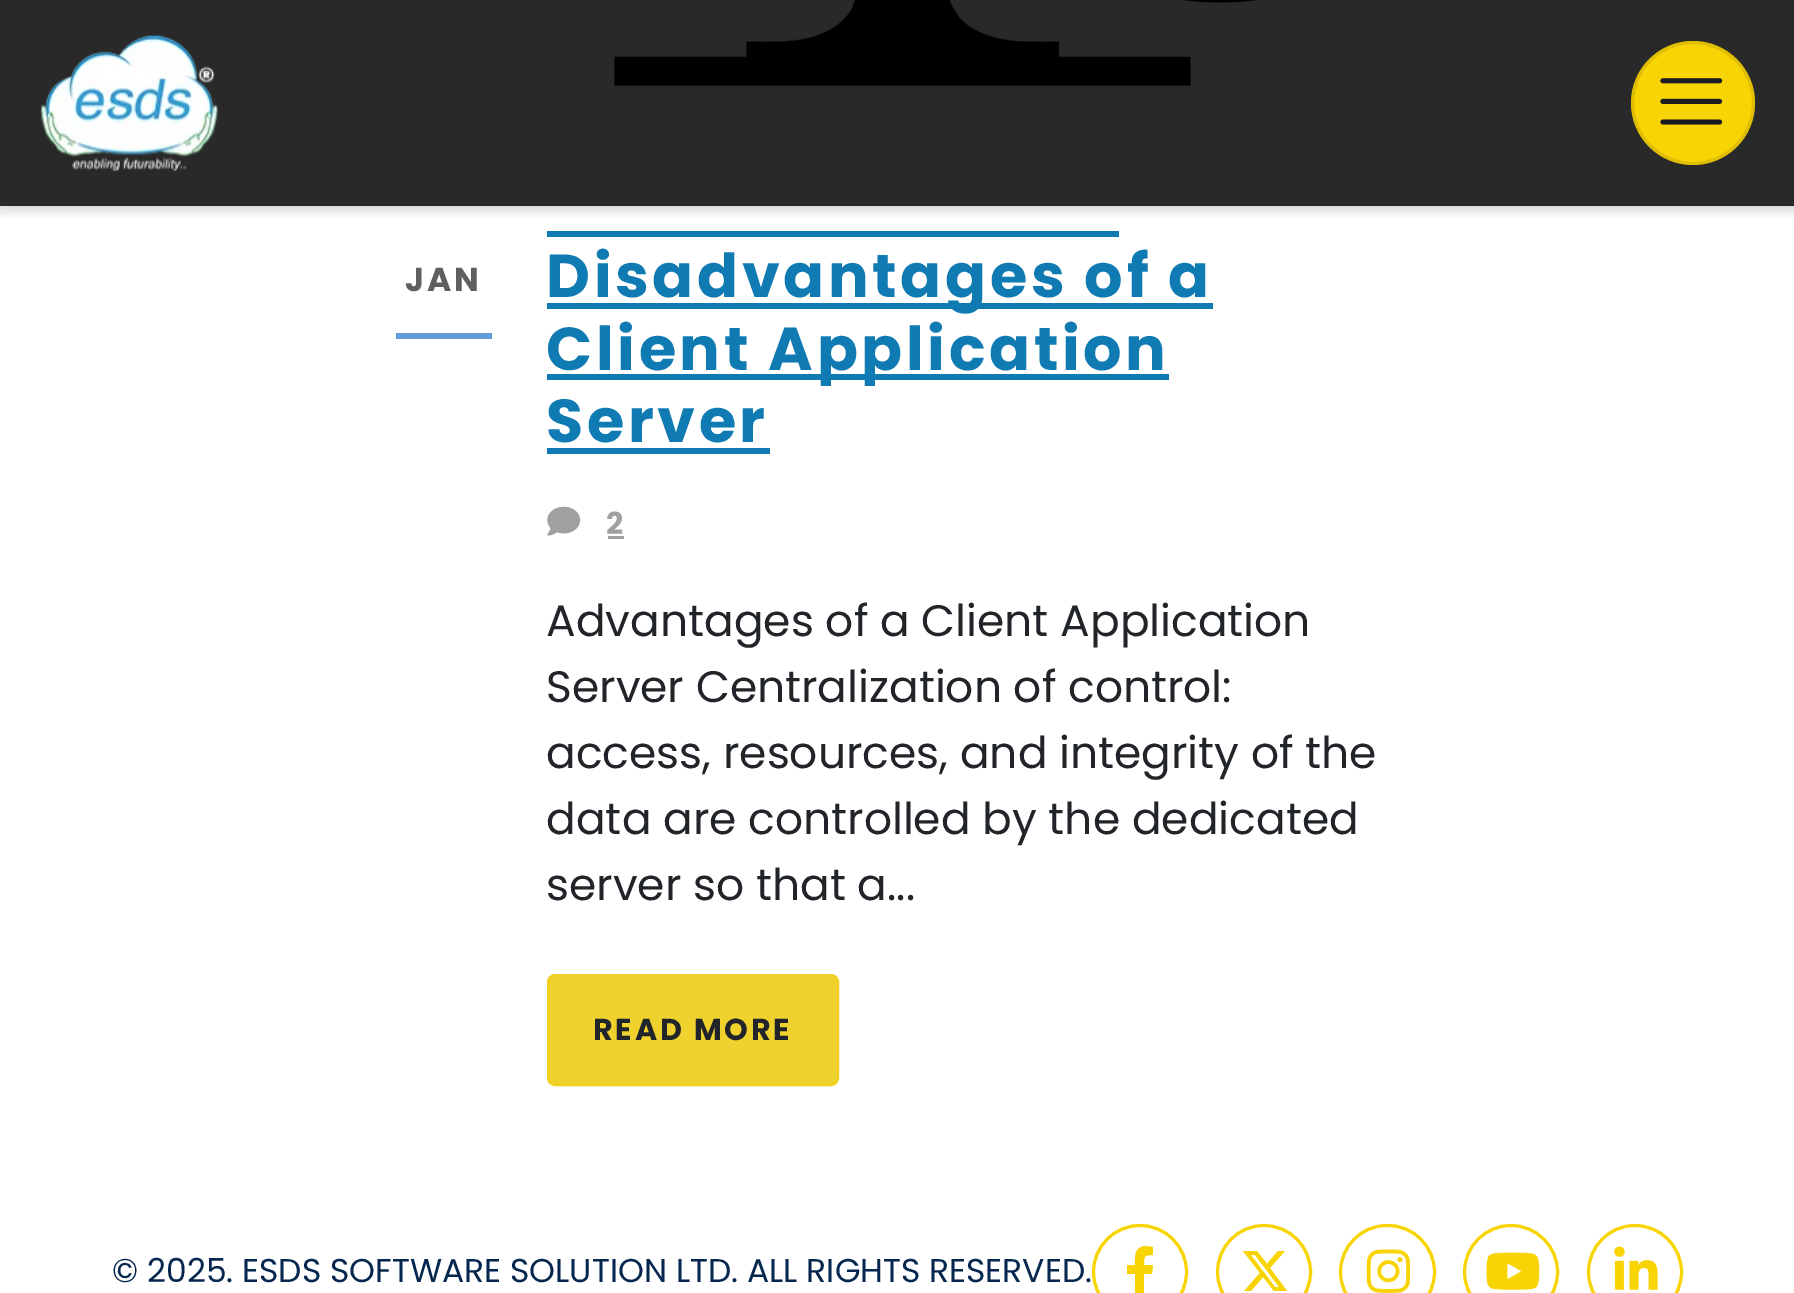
%!PS-Adobe-3.0
%%BoundingBox: 0 0 1794 1293
%%LanguageLevel: 3
%%Pages: 1
%%EndComments
%%BeginProlog
/setalpha { dup .setfillconstantalpha .setstrokeconstantalpha } def
/rrect { 5 dict begin { /r /h /w /y /x } { exch def } forall
  x r add y moveto x w add y 2 copy h add r arct x w add y h add x 1 index r arct
  x y h add x y r arct x y 2 copy exch w add exch r arct closepath end } def
/softshadow { 12 dict begin { /a /b /q /h /w /y /x } { exch def } forall gsave /was 0 def
  9 -2 -9 { dup b mul 4 div /e exch def 1 sub .425 mul 2.718 exch exp 1 add a .99 .min exch div /now exch def
    1 1 now sub 1 was sub div sub setalpha /was now def
    w h .min e 2 mul add 0 gt { x e sub y e sub w e 2 mul add h e 2 mul add
      q e add b .6 mul add w h .min 2 div e add .min 0 .max rrect fill } if } for grestore end } def
/drawimage { 5 dict begin { /h /w /y /x /name } { exch def } forall
  gsave x y translate w h scale
  w h 8 [w 0 0 h 0 0] name (r) file false 3 colorimage grestore end } def
%%EndProlog
%%BeginSetup
<< /PageSize [1794 1293] /PageUsesTransparency true >> setpagedevice
%%EndSetup
%%Page: 1 1
0 .pushpdf14devicefilter
0 1293 translate 1 -1 scale
4 setmiterlimit
1 setgray
0 0 1794 1293 rectfill
(images/3.raw) 614 0 649 86 drawimage
gsave
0 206 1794 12 rectclip
0 setgray
0 3 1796 206 0 7 0.2 softshadow
grestore
0.84 setalpha
0 setgray
0 0 1794 206 rectfill
1 setalpha
(images/1.raw) 41 35 177 136 drawimage
0.973 0.831 0.016 setrgbcolor
newpath 1693 103 62 0 360 arc closepath fill
0.1 setalpha
0 setgray
3 setlinewidth
newpath 1693 103 60.5 0 360 arc closepath stroke
1 setalpha
(images/2.raw) 1660 78 63 47 drawimage
0.388 0.62 0.859 setrgbcolor
396 333 96 6 rectfill
0.063 0.478 0.702 setrgbcolor
547 231 572 6 rectfill
547 303 666 6 rectfill
547 374 622 6 rectfill
547 448 223 6 rectfill
(images/4.raw) 547 506 34 30 drawimage
0.627 setgray
608 536 16 3 rectfill
0.937 0.824 0.18 setrgbcolor
548.5 975.5 289 109 6.5 rrect gsave fill grestore
0.937 0.816 0.137 setrgbcolor
stroke
0.973 0.831 0.016 setrgbcolor
newpath 1140 1272 46.5 0 360 arc closepath stroke
newpath 1152 1274 moveto 1153 1265 lineto 1144 1265 lineto 1144 1256 1144 1255 1153 1255 curveto 1153 1247 lineto 1145 1246 lineto 1134 1247 1135 1257 1135 1265 curveto 1127 1265 lineto 1127 1274 lineto 1135 1274 lineto 1135 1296 lineto 1144 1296 lineto 1144 1274 lineto closepath fill
newpath 1264 1272 46.5 0 360 arc closepath stroke
newpath 1278 1251 moveto 1285 1251 lineto 1270 1268 lineto 1287 1291 lineto 1274 1291 lineto 1263 1277 lineto 1251 1291 lineto 1244 1291 lineto 1260 1273 lineto 1243 1251 lineto 1257 1251 lineto 1267 1264 lineto closepath 1275 1287 moveto 1279 1287 lineto 1255 1255 lineto 1251 1255 lineto closepath fill
1340.5 1225.5 94 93 46.5 rrect stroke
(images/5.raw) 1366 1249 45 44 drawimage
newpath 1511 1272 46.5 0 360 arc closepath stroke
(images/6.raw) 1486 1252 54 38 drawimage
newpath 1635 1272 46.5 0 360 arc closepath stroke
(images/7.raw) 1614 1246 44 44 drawimage
/Poppins-Bold [33 0 0 -33 0 0] selectfont
0.373 setgray
405 291 moveto 2.75 0 (JAN) ashow
/Poppins-Bold [60.5 0 0 -60.5 0 0] selectfont
0.063 0.478 0.702 setrgbcolor
546 297 moveto 3.6 0 (Disadvantages of a) ashow
546 370 moveto 3.6 0 (Client Application) ashow
546 442 moveto 3.6 0 (Server) ashow
/Poppins-Bold [30.25 0 0 -30.25 0 0] selectfont
0.627 setgray
606 534 moveto (2) show
/Poppins-Regular [44 0 0 -44 0 0] selectfont
0.129 0.145 0.161 setrgbcolor
546 636 moveto (Advantages of a Client Application) show
546 702 moveto (Server Centralization of control:) show
546 768 moveto (access, resources, and integrity of the) show
546 834 moveto (data are controlled by the dedicated) show
546 900 moveto (server so that a...) show
/Poppins-Bold [30.25 0 0 -30.25 0 0] selectfont
593 1040 moveto 2.75 0 (READ MORE) ashow
/Poppins-Regular [33 0 0 -33 0 0] selectfont
0.02 0.149 0.306 setrgbcolor
112 1282 moveto (© 2025. ESDS SOFTWARE SOLUTION LTD. ALL RIGHTS RESERVED.) show
.poppdf14devicefilter showpage
%%EOF
